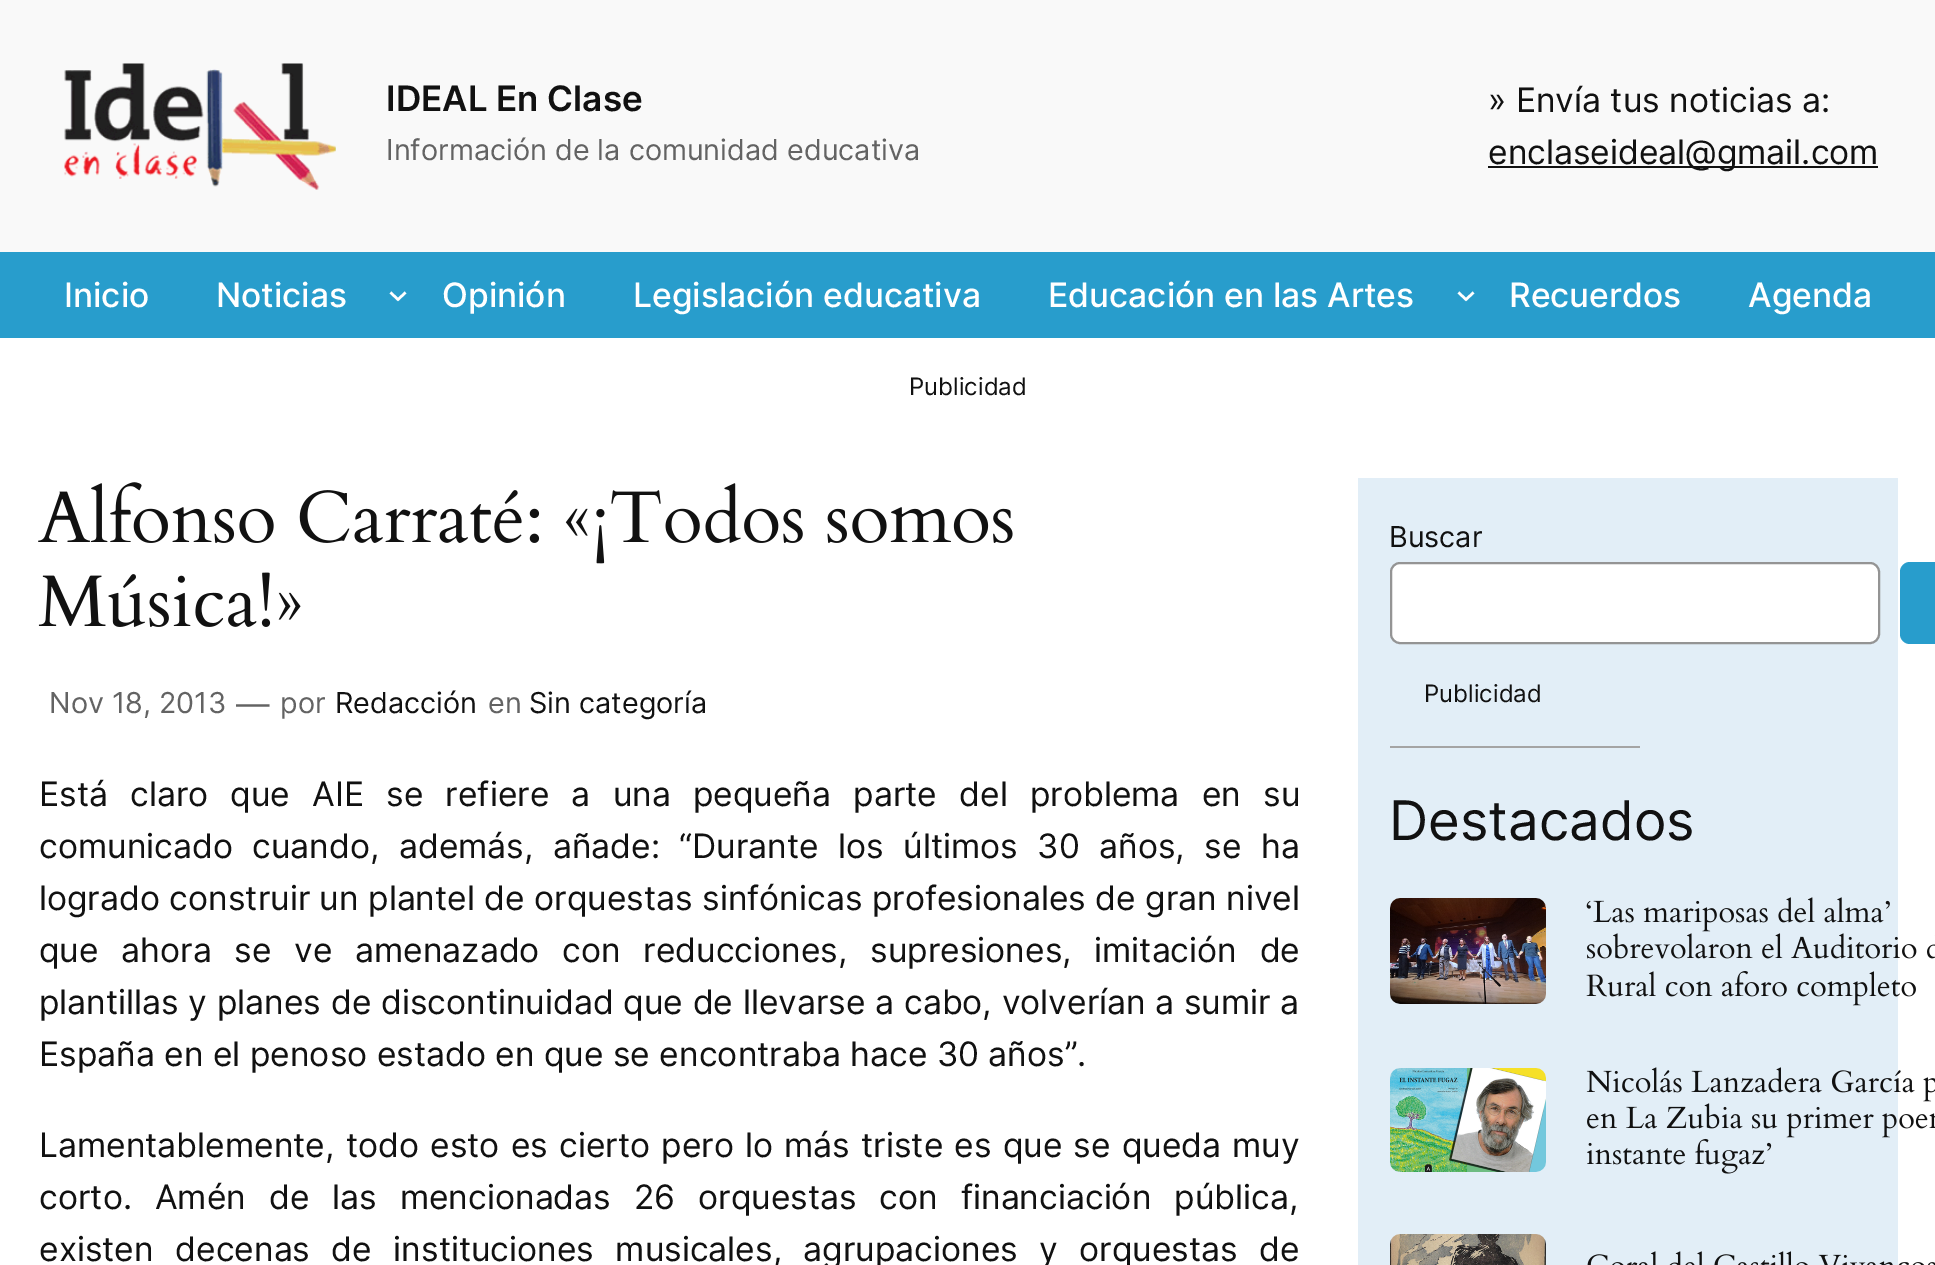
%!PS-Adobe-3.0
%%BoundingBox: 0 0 1935 1265
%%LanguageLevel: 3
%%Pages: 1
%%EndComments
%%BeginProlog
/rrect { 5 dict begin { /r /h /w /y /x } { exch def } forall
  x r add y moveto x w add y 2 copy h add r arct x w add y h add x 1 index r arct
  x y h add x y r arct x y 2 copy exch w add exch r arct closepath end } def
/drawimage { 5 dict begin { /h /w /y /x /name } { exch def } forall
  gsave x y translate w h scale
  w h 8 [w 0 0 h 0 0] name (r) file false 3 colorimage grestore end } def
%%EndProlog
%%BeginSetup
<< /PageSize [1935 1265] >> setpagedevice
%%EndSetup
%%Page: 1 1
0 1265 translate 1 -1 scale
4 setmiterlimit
0.976 setgray
0 0 1935 1265 rectfill
(images/1.raw) 64 63 272 127 drawimage
0.067 setgray
1488 166 390 2 rectfill
0.157 0.616 0.8 setrgbcolor
0 252 1935 86 rectfill
1 setgray
2.5 setlinewidth
newpath 390.5 292.5 moveto 398 299.5 lineto 405.5 292.5 lineto stroke
newpath 1458.5 292.5 moveto 1466 299.5 lineto 1473.5 292.5 lineto stroke
0 338 1935 927 rectfill
(images/2.raw) 38 482 975 82 drawimage
(images/3.raw) 38 572 263 55 drawimage
0.886 0.933 0.969 setrgbcolor
1358 478 540 787 rectfill
1 setgray
1391 563 488 80 9 rrect gsave fill grestore
0.58 setgray
2 setlinewidth
stroke
0.157 0.616 0.8 setrgbcolor
1900 562 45 82 10 rrect fill
0.643 setgray
1390 746 250 2 rectfill
(images/4.raw) 1390 898 156 106 drawimage
(images/5.raw) 1586 897 304 35 drawimage
(images/6.raw) 1587 933 348 26 drawimage
(images/7.raw) 1586 971 330 35 drawimage
(images/8.raw) 1390 1068 156 104 drawimage
(images/9.raw) 1586 1067 349 35 drawimage
(images/10.raw) 1587 1103 348 35 drawimage
(images/11.raw) 1587 1138 185 36 drawimage
(images/12.raw) 1390 1234 156 31 drawimage
(images/13.raw) 1587 1251 348 14 drawimage
/Inter-SemiBold [35 0 0 -35 0 0] selectfont
0.067 setgray
386 111 moveto (IDEAL En Clase) show
/Inter-Regular [28.75 0 0 -28.75 0 0] selectfont
0.388 setgray
386 160 moveto (Información de la comunidad educativa) show
/Inter-Regular [33.6 0 0 -33.6 0 0] selectfont
0.067 setgray
1488 112 moveto (» Envía tus noticias a:) show
1488 164 moveto (enclaseideal@gmail.com) show
/Inter-Medium [33.6 0 0 -33.6 0 0] selectfont
1 setgray
64 307 moveto (Inicio) show
216 307 moveto (Noticias) show
442 307 moveto (Opinión) show
633 307 moveto (Legislación educativa) show
1048 307 moveto (Educación en las Artes) show
1509 307 moveto (Recuerdos) show
1748 307 moveto (Agenda) show
/Inter-Regular [24 0 0 -24 0 0] selectfont
0.067 setgray
909 395 moveto (Publicidad) show
/Inter-Regular [28.75 0 0 -28.75 0 0] selectfont
0.388 setgray
49 713 moveto (Nov 18, 2013) show
/Inter-Regular [33.6 0 0 -33.6 0 0] selectfont
236 716 moveto (—) show
/Inter-Regular [28.75 0 0 -28.75 0 0] selectfont
280 713 moveto (por) show
0.067 setgray
335 713 moveto (Redacción) show
0.388 setgray
488 713 moveto (en) show
0.067 setgray
529 713 moveto (Sin categoría) show
/Inter-Regular [33.6 0 0 -33.6 0 0] selectfont
39 806 moveto 12.75 0 32 (Está claro que AIE se refiere a una pequeña parte del problema en su) widthshow
39 858 moveto 10 0 32 (comunicado cuando, además, añade: “Durante los últimos 30 años, se ha) widthshow
39 910 moveto (logrado construir un plantel de orquestas sinfónicas profesionales de gran nivel) show
39 962 moveto 13.25 0 32 (que ahora se ve amenazado con reducciones, supresiones, imitación de) widthshow
39 1014 moveto 0.25 0 32 (plantillas y planes de discontinuidad que de llevarse a cabo, volverían a sumir a) widthshow
39 1066 moveto (España en el penoso estado en que se encontraba hace 30 años”.) show
39 1157 moveto 1.75 0 32 (Lamentablemente, todo esto es cierto pero lo más triste es que se queda muy) widthshow
39 1209 moveto 13.5 0 32 (corto. Amén de las mencionadas 26 orquestas con financiación pública,) widthshow
39 1261 moveto 12 0 32 (existen decenas de instituciones musicales, agrupaciones y orquestas de) widthshow
/Inter-Regular [28.75 0 0 -28.75 0 0] selectfont
1389 547 moveto (Buscar) show
/Inter-Regular [24 0 0 -24 0 0] selectfont
1424 702 moveto (Publicidad) show
/Inter-Regular [54.5 0 0 -54.5 0 0] selectfont
1389 840 moveto (Destacados) show
showpage
%%EOF
